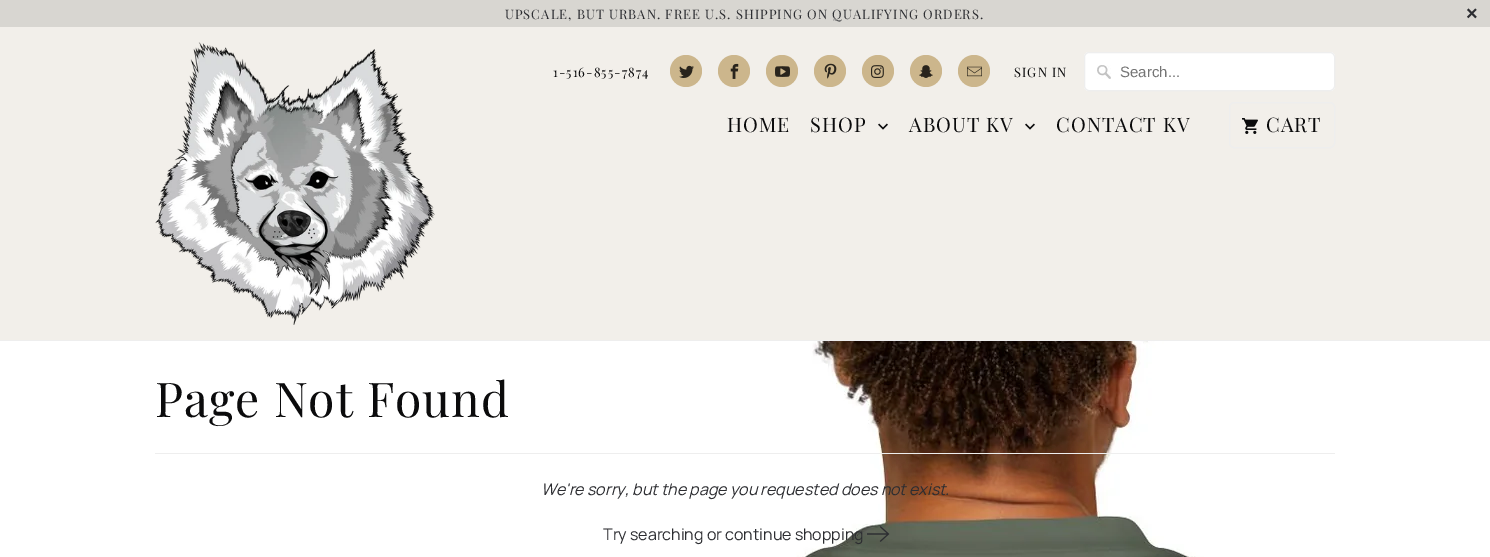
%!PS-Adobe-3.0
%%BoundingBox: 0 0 1490 557
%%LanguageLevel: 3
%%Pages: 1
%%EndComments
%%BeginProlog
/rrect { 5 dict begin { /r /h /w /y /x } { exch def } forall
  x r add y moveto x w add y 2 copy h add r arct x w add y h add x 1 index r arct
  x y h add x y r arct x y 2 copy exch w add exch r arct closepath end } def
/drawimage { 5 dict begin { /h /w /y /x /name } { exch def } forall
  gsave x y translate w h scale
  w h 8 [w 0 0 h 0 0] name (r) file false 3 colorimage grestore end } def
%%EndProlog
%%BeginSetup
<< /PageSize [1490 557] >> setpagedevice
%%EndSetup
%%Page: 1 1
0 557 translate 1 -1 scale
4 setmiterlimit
1 setgray
0 0 1490 557 rectfill
(images/1.raw) 0 341 1490 216 drawimage
0.847 0.839 0.82 setrgbcolor
0 0 1490 27 rectfill
0.949 0.937 0.918 setrgbcolor
0 27 1490 313 rectfill
0.933 setgray
0 340 1490 1 rectfill
(images/2.raw) 155 42 280 283 drawimage
0.8 0.714 0.549 setrgbcolor
newpath 686 71 16 0 360 arc closepath fill
(images/3.raw) 679 65 15 13 drawimage
newpath 734 71 16 0 360 arc closepath fill
(images/4.raw) 730 63 9 16 drawimage
newpath 782 71 16 0 360 arc closepath fill
(images/5.raw) 775 66 15 11 drawimage
newpath 830 71 16 0 360 arc closepath fill
(images/6.raw) 824 63 13 16 drawimage
newpath 878 71 16 0 360 arc closepath fill
(images/7.raw) 871 65 13 13 drawimage
newpath 926 71 16 0 360 arc closepath fill
(images/8.raw) 919 65 14 13 drawimage
newpath 974 71 16 0 360 arc closepath fill
(images/9.raw) 967 66 15 11 drawimage
1 setgray
1084 52 251 39 5 rrect fill
(images/10.raw) 1097 65 14 14 drawimage
0.933 setgray
1084.5 52.5 250 38 4.5 rrect stroke
(images/11.raw) 878 123 10 7 drawimage
(images/11.raw) 1025 123 10 7 drawimage
1229.5 102.5 105 45 4.5 rrect stroke
(images/12.raw) 1242 118 16 16 drawimage
155 453 1180 1 rectfill
(images/13.raw) 867 526 23 16 drawimage
/PlayfairDisplay-Regular [13 0 0 -13 0 0] selectfont
0.173 0.176 0.192 setrgbcolor
505 19 moveto 1 0 (UPSCALE, BUT URBAN. FREE U.S. SHIPPING ON QUALIFYING ORDERS.) ashow
/LiberationSans-Bold [20 0 0 -20 0 0] selectfont
1466 20 moveto 1 0 (×) ashow
/PlayfairDisplay-Regular [13 0 0 -13 0 0] selectfont
0.043 0.043 0.047 setrgbcolor
553 77 moveto 1 0 (1-516-855-7874) ashow
1014 77 moveto 1 0 (SIGN IN) ashow
/LiberationSans-Regular [15 0 0 -15 0 0] selectfont
0.459 setgray
1120 77 moveto (Search...) show
/PlayfairDisplay-Regular [20 0 0 -20 0 0] selectfont
0.043 0.043 0.047 setrgbcolor
727 132 moveto 1 0 (HOME) ashow
810 132 moveto 1 0 (SHOP) ashow
909 132 moveto 1 0 (ABOUT KV) ashow
1056 132 moveto 1 0 (CONTACT KV) ashow
1266 132 moveto 1 0 (CART) ashow
/PlayfairDisplay-Regular [48 0 0 -48 0 0] selectfont
155 417 moveto 1 0 (Page Not Found) ashow
/Manrope-Italic [16 0 0 -16 0 0] selectfont
0.173 0.176 0.192 setrgbcolor
541 495 moveto (We're sorry, but the page you requested does not exist.) show
/Manrope-Regular [16 0 0 -16 0 0] selectfont
603 540 moveto (Try searching or continue shopping) show
showpage
%%EOF
